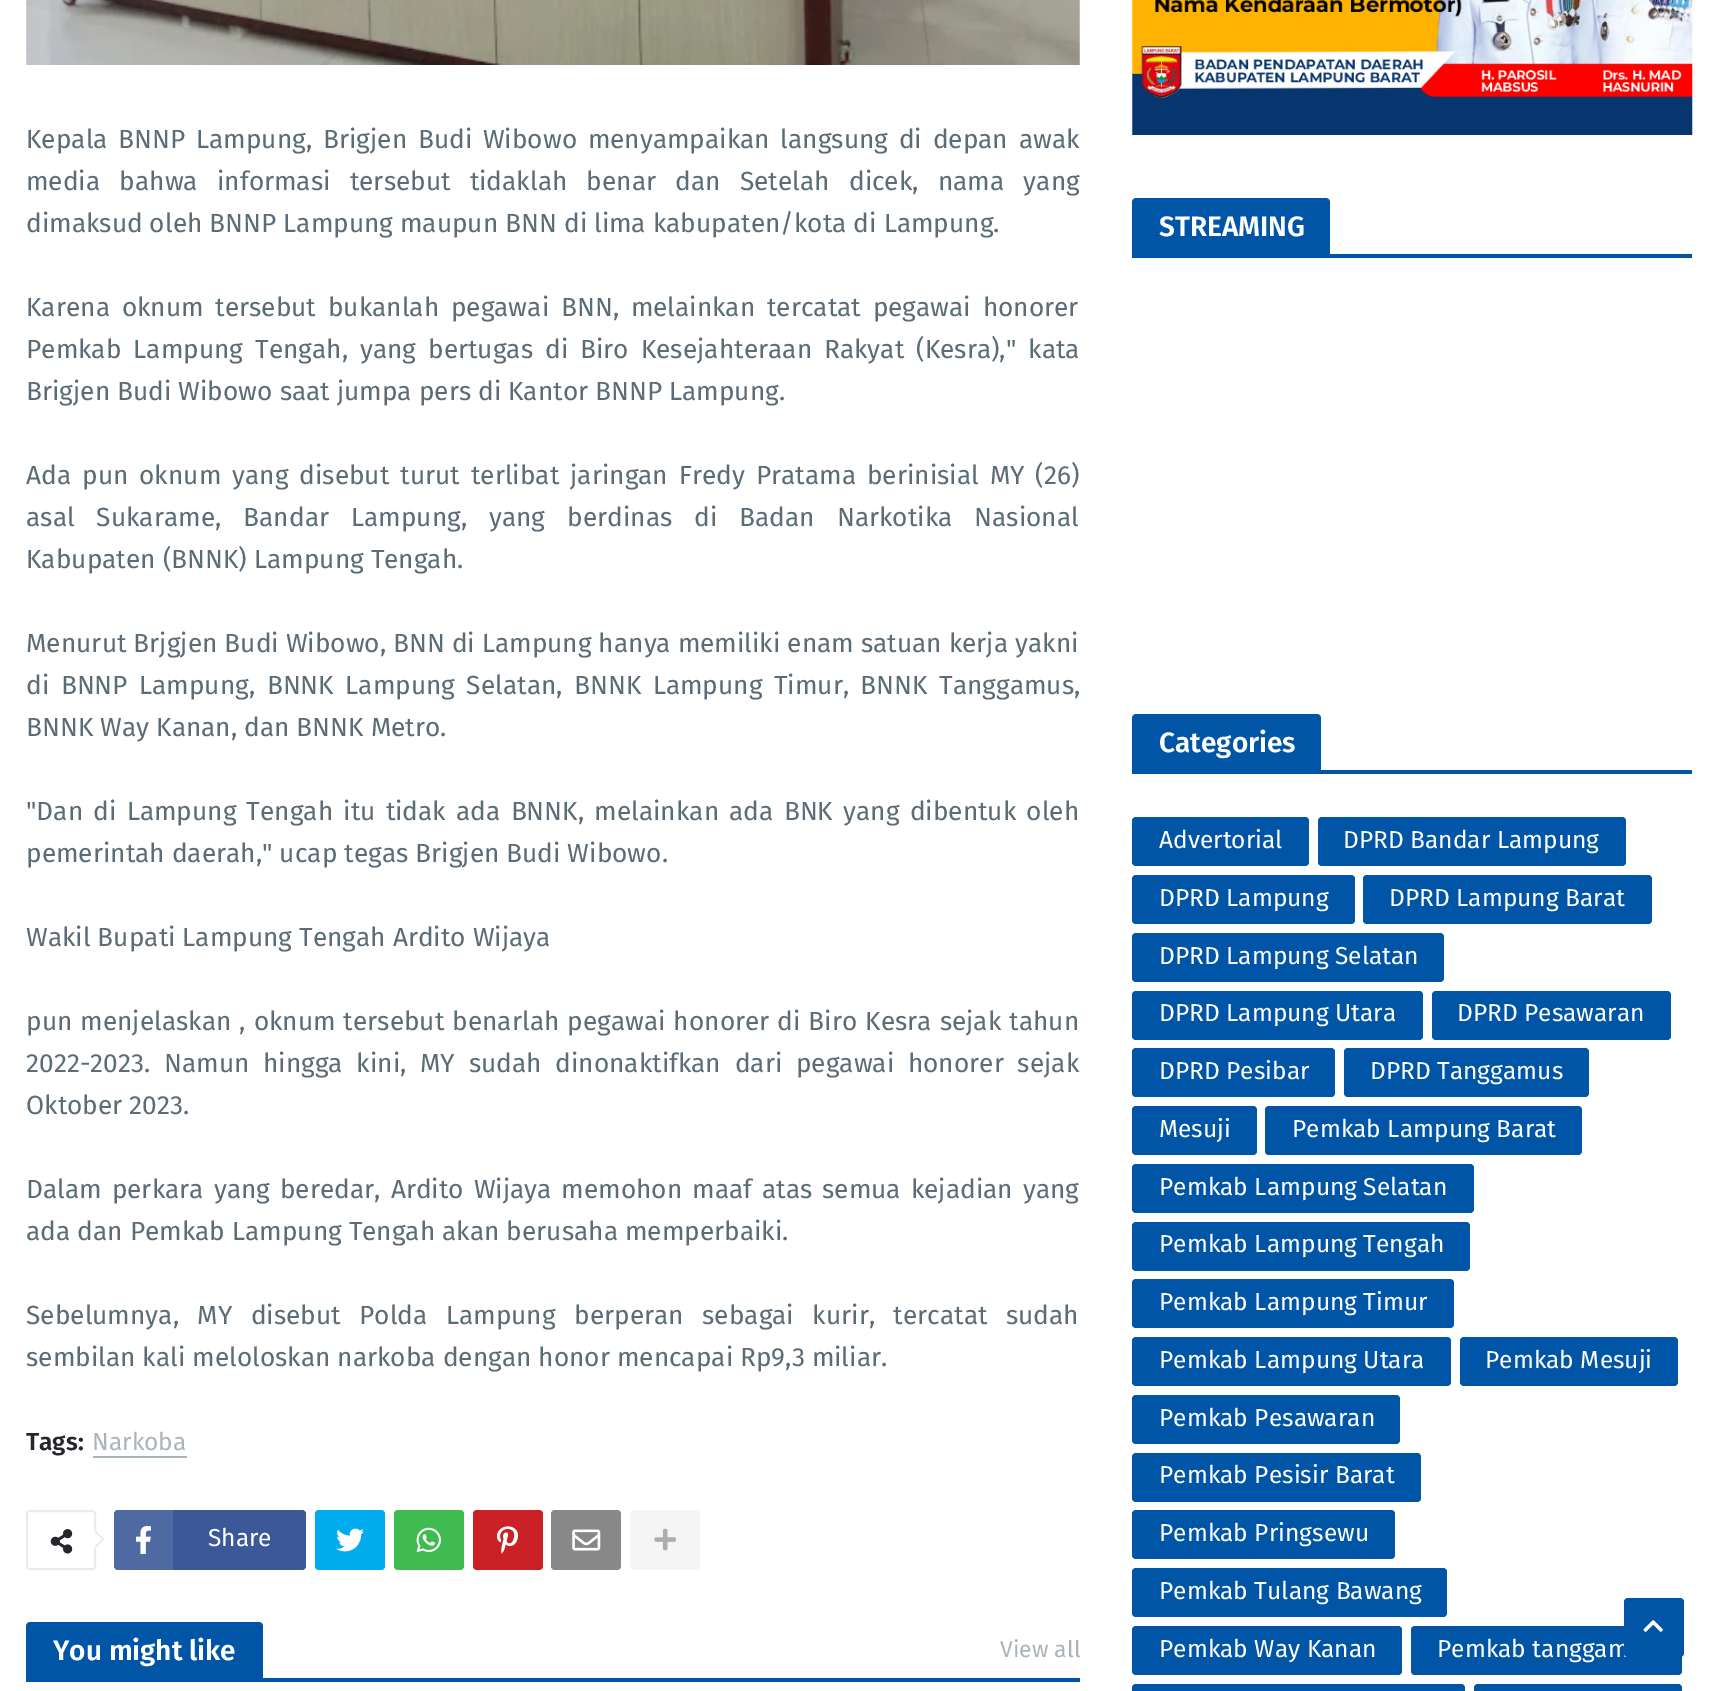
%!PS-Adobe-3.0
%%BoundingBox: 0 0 1717 1691
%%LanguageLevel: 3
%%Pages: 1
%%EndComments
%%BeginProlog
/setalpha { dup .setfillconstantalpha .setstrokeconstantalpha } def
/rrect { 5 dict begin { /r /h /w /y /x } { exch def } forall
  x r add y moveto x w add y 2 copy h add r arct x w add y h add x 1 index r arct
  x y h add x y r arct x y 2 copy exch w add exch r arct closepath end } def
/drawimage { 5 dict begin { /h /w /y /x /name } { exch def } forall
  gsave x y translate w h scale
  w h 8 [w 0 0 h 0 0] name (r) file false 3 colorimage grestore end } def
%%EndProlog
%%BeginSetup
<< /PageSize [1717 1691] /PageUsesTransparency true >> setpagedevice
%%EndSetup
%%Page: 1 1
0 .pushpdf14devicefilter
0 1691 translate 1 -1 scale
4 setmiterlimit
1 setgray
0 0 1717 1691 rectfill
(images/1.raw) 26 0 1054 65 drawimage
0.663 0.706 0.729 setrgbcolor
93 1456 94 2 rectfill
0.922 setgray
2 setlinewidth
27 1511 68 58 3 rrect stroke
(images/2.raw) 50 1529 23 25 drawimage
1 setgray
newpath 94.5 1529.5 moveto 104.5 1539.5 lineto 94.5 1549 lineto 84.5 1539.5 lineto closepath fill
0.2 setalpha
0.608 setgray
newpath 94.5 1529.5 moveto 104.5 1539.5 lineto 102 1539.5 lineto 94.5 1532 lineto closepath fill
1 setalpha
0.922 setgray
newpath 104.5 1539.5 moveto 94.5 1549 lineto 94.5 1546.5 lineto 102 1539.5 lineto closepath fill
0.231 0.349 0.6 setrgbcolor
114 1510 192 60 4 rrect fill
0.1 setalpha
1 setgray
114 1510 59 60 rectfill
1 setalpha
(images/3.raw) 136 1526 15 28 drawimage
0 0.675 0.933 setrgbcolor
315 1510 70 60 4 rrect fill
(images/4.raw) 336 1528 28 24 drawimage
0.247 0.733 0.314 setrgbcolor
394 1510 70 60 4 rrect fill
(images/5.raw) 416 1527 25 26 drawimage
0.792 0.129 0.153 setrgbcolor
473 1510 70 60 4 rrect fill
(images/6.raw) 497 1526 21 28 drawimage
0.533 setgray
551 1510 70 60 4 rrect fill
(images/7.raw) 572 1529 29 22 drawimage
0.961 setgray
630 1510 70 60 4 rrect fill
(images/8.raw) 654 1528 22 23 drawimage
0 0.333 0.651 setrgbcolor
263 1678 817 4 rectfill
newpath 30 1622 moveto 259 1622 lineto 261 1622 263 1624 263 1626 curveto 263 1682 lineto 26 1682 lineto 26 1626 lineto 26 1624 28 1622 30 1622 curveto closepath fill
(images/9.raw) 1132 0 561 135 drawimage
1132 254 560 4 rectfill
newpath 1136 198 moveto 1326 198 lineto 1328 198 1330 200 1330 202 curveto 1330 257 lineto 1132 257 lineto 1132 202 lineto 1132 200 1134 198 1136 198 curveto closepath fill
1321 770 371 4 rectfill
newpath 1136 714 moveto 1317 714 lineto 1319 714 1321 716 1321 718 curveto 1321 774 lineto 1132 774 lineto 1132 718 lineto 1132 716 1134 714 1136 714 curveto closepath fill
1132 817 177 49 4 rrect fill
1318 817 308 49 4 rrect fill
1132 875 223 49 4 rrect fill
1363 875 289 49 4 rrect fill
1132 933 312 49 4 rrect fill
1132 991 291 49 4 rrect fill
1432 991 239 49 4 rrect fill
1132 1048 203 49 4 rrect fill
1344 1048 245 49 4 rrect fill
1132 1106 125 49 4 rrect fill
1265 1106 317 49 4 rrect fill
1132 1164 342 49 4 rrect fill
1132 1222 338 49 4 rrect fill
1132 1279 322 49 4 rrect fill
1132 1337 319 49 4 rrect fill
1460 1337 218 49 4 rrect fill
1132 1395 268 49 4 rrect fill
1132 1453 289 49 4 rrect fill
1132 1510 263 49 4 rrect fill
1132 1568 315 49 4 rrect fill
1132 1626 270 49 4 rrect fill
1411 1626 271 49 4 rrect fill
1132 1684 333 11 4 rrect fill
1474 1684 208 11 4 rrect fill
/FiraSans-Regular [26.25 0 0 -26.25 0 0] selectfont
0.357 0.424 0.467 setrgbcolor
26 148 moveto 3.75 0 32 (Kepala BNNP Lampung, Brigjen Budi Wibowo menyampaikan langsung di depan awak) widthshow
26 190 moveto 12.25 0 32 (media bahwa informasi tersebut tidaklah benar dan Setelah dicek, nama yang) widthshow
26 232 moveto (dimaksud oleh BNNP Lampung maupun BNN di lima kabupaten/kota di Lampung.) show
26 316 moveto 4.75 0 32 (Karena oknum tersebut bukanlah pegawai BNN, melainkan tercatat pegawai honorer) widthshow
26 358 moveto 5 0 32 (Pemkab Lampung Tengah, yang bertugas di Biro Kesejahteraan Rakyat \(Kesra\)," kata) widthshow
26 400 moveto (Brigjen Budi Wibowo saat jumpa pers di Kantor BNNP Lampung.) show
26 484 moveto 4 0 32 (Ada pun oknum yang disebut turut terlibat jaringan Fredy Pratama berinisial MY \(26\)) widthshow
26 526 moveto 15 0 32 (asal Sukarame, Bandar Lampung, yang berdinas di Badan Narkotika Nasional) widthshow
26 568 moveto (Kabupaten \(BNNK\) Lampung Tengah.) show
26 652 moveto (Menurut Brjgjen Budi Wibowo, BNN di Lampung hanya memiliki enam satuan kerja yakni) show
26 694 moveto 4.5 0 32 (di BNNP Lampung, BNNK Lampung Selatan, BNNK Lampung Timur, BNNK Tanggamus,) widthshow
26 736 moveto (BNNK Way Kanan, dan BNNK Metro.) show
26 820 moveto 3.25 0 32 ("Dan di Lampung Tengah itu tidak ada BNNK, melainkan ada BNK yang dibentuk oleh) widthshow
26 862 moveto (pemerintah daerah," ucap tegas Brigjen Budi Wibowo.) show
26 946 moveto (Wakil Bupati Lampung Tengah Ardito Wijaya) show
26 1030 moveto 1 0 32 (pun menjelaskan , oknum tersebut benarlah pegawai honorer di Biro Kesra sejak tahun) widthshow
26 1072 moveto 6.75 0 32 (2022-2023. Namun hingga kini, MY sudah dinonaktifkan dari pegawai honorer sejak) widthshow
26 1114 moveto (Oktober 2023.) show
26 1198 moveto 3 0 32 (Dalam perkara yang beredar, Ardito Wijaya memohon maaf atas semua kejadian yang) widthshow
26 1240 moveto (ada dan Pemkab Lampung Tengah akan berusaha memperbaiki.) show
26 1324 moveto 11.5 0 32 (Sebelumnya, MY disebut Polda Lampung berperan sebagai kurir, tercatat sudah) widthshow
26 1366 moveto (sembilan kali meloloskan narkoba dengan honor mencapai Rp9,3 miliar.) show
/FiraSans-SemiBold [24.5 0 0 -24.5 0 0] selectfont
0.145 0.149 0.18 setrgbcolor
26 1450 moveto (Tags:) show
/FiraSans-Regular [24.5 0 0 -24.5 0 0] selectfont
0.663 0.706 0.729 setrgbcolor
92 1450 moveto (Narkoba) show
1 setgray
208 1546 moveto (Share) show
/FiraSans-SemiBold [28 0 0 -28 0 0] selectfont
53 1660 moveto (You might like) show
/FiraSans-Regular [23 0 0 -23 0 0] selectfont
0.663 0.706 0.729 setrgbcolor
1000 1657 moveto (View all) show
/FiraSans-SemiBold [28 0 0 -28 0 0] selectfont
1 setgray
1159 236 moveto (STREAMING) show
1159 752 moveto (Categories) show
/FiraSans-Regular [24.5 0 0 -24.5 0 0] selectfont
1159 848 moveto (Advertorial) show
1343 848 moveto (DPRD Bandar Lampung) show
1159 906 moveto (DPRD Lampung) show
1389 906 moveto (DPRD Lampung Barat) show
1159 964 moveto (DPRD Lampung Selatan) show
1159 1021 moveto (DPRD Lampung Utara) show
1457 1021 moveto (DPRD Pesawaran) show
1159 1079 moveto (DPRD Pesibar) show
1370 1079 moveto (DPRD Tanggamus) show
1159 1137 moveto (Mesuji) show
1292 1137 moveto (Pemkab Lampung Barat) show
1159 1195 moveto (Pemkab Lampung Selatan) show
1159 1252 moveto (Pemkab Lampung Tengah) show
1159 1310 moveto (Pemkab Lampung Timur) show
1159 1368 moveto (Pemkab Lampung Utara) show
1485 1368 moveto (Pemkab Mesuji) show
1159 1426 moveto (Pemkab Pesawaran) show
1159 1483 moveto (Pemkab Pesisir Barat) show
1159 1541 moveto (Pemkab Pringsewu) show
1159 1599 moveto (Pemkab Tulang Bawang) show
1159 1657 moveto (Pemkab Way Kanan) show
1437 1657 moveto (Pemkab tanggam) show
0 0.333 0.651 setrgbcolor
1624 1598 60 59 4 rrect fill
(images/10.raw) 1643 1620 20 12 drawimage
.poppdf14devicefilter showpage
%%EOF
